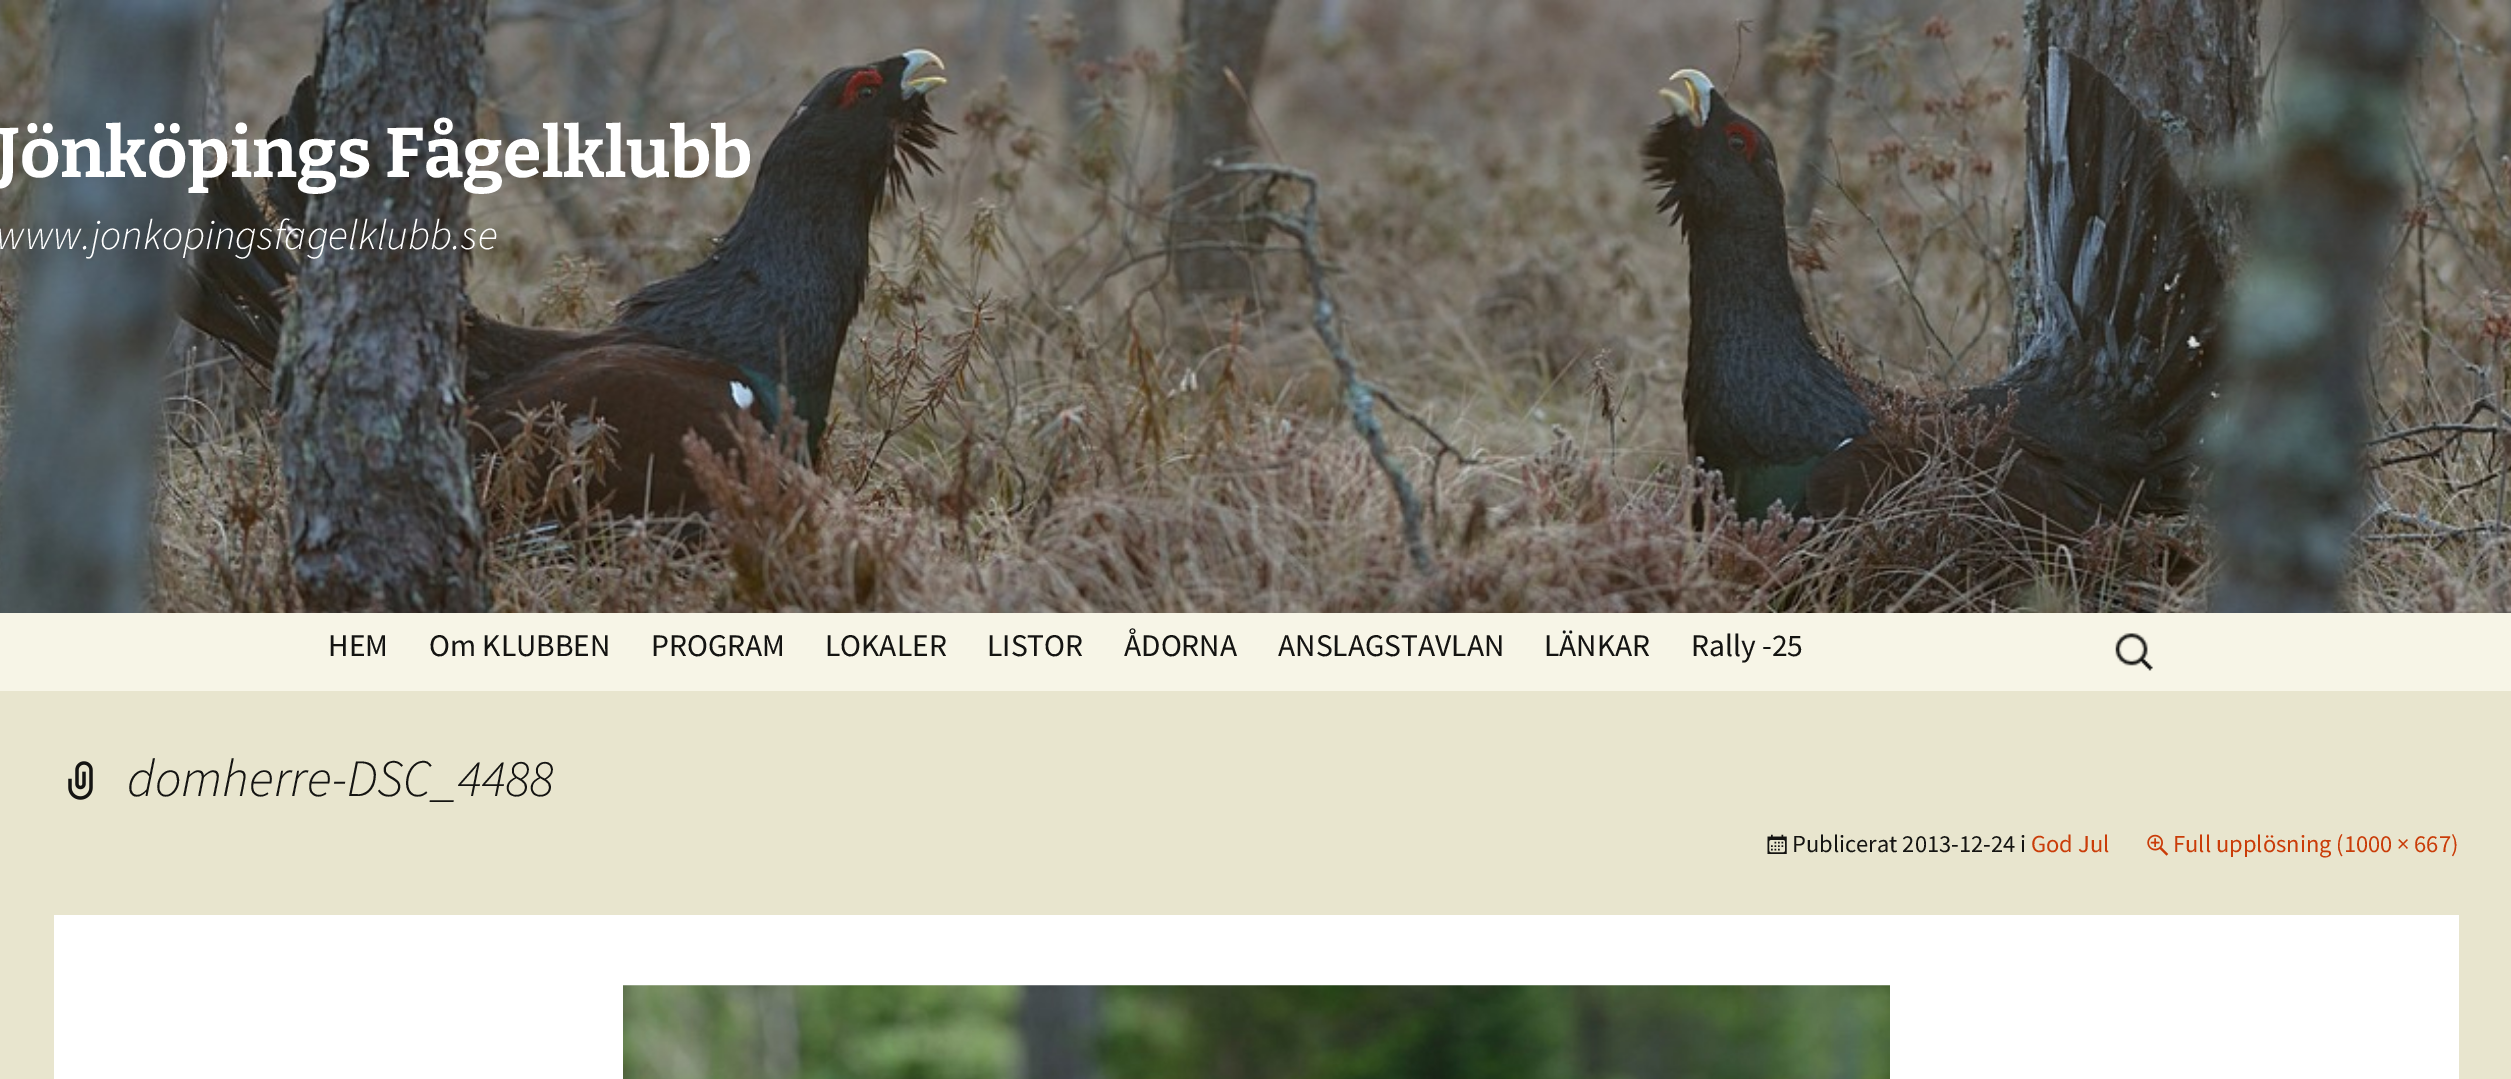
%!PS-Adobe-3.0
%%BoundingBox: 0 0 2511 1079
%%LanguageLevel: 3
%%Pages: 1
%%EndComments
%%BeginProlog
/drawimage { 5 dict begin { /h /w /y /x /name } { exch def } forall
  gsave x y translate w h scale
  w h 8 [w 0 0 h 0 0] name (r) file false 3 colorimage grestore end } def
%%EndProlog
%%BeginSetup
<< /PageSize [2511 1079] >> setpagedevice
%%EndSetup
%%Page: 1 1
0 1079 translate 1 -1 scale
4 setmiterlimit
1 setgray
0 0 2511 1079 rectfill
(images/1.raw) 0 0 2511 613 drawimage
0.969 0.961 0.906 setrgbcolor
0 613 2511 78 rectfill
(images/2.raw) 2115 633 38 38 drawimage
0.91 0.898 0.808 setrgbcolor
0 691 2511 388 rectfill
(images/3.raw) 68 761 25 39 drawimage
(images/4.raw) 1767 834 20 20 drawimage
(images/5.raw) 2147 834 22 22 drawimage
1 setgray
54 915 2405 164 rectfill
(images/6.raw) 623 985 1267 94 drawimage
/Bitter-Thin [70 0 0 -70 0 0] selectfont
-4 177 moveto (Jönköpings Fågelklubb) show
/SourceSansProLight-LightItalic [42 0 0 -42 0 0] selectfont
-4 249 moveto (www.jonkopingsfagelklubb.se) show
/SourceSansPro-Regular [31.5 0 0 -31.5 0 0] selectfont
0.078 0.078 0.071 setrgbcolor
328 656 moveto (HEM) show
429 656 moveto (Om KLUBBEN) show
651 656 moveto (PROGRAM) show
825 656 moveto (LOKALER) show
987 656 moveto (LISTOR) show
1124 656 moveto (ÅDORNA) show
1278 656 moveto (ANSLAGSTAVLAN) show
1544 656 moveto (LÄNKAR) show
1691 656 moveto (Rally -25) show
/SourceSansProLight-LightItalic [52.5 0 0 -52.5 0 0] selectfont
127 796 moveto (domherre-DSC_4488) show
/SourceSansPro-Regular [24.5 0 0 -24.5 0 0] selectfont
1792 852 moveto (Publicerat 2013-12-24 i) show
0.792 0.235 0.031 setrgbcolor
2031 852 moveto (God Jul) show
2173 852 moveto (Full upplösning \(1000 × 667\)) show
showpage
%%EOF
